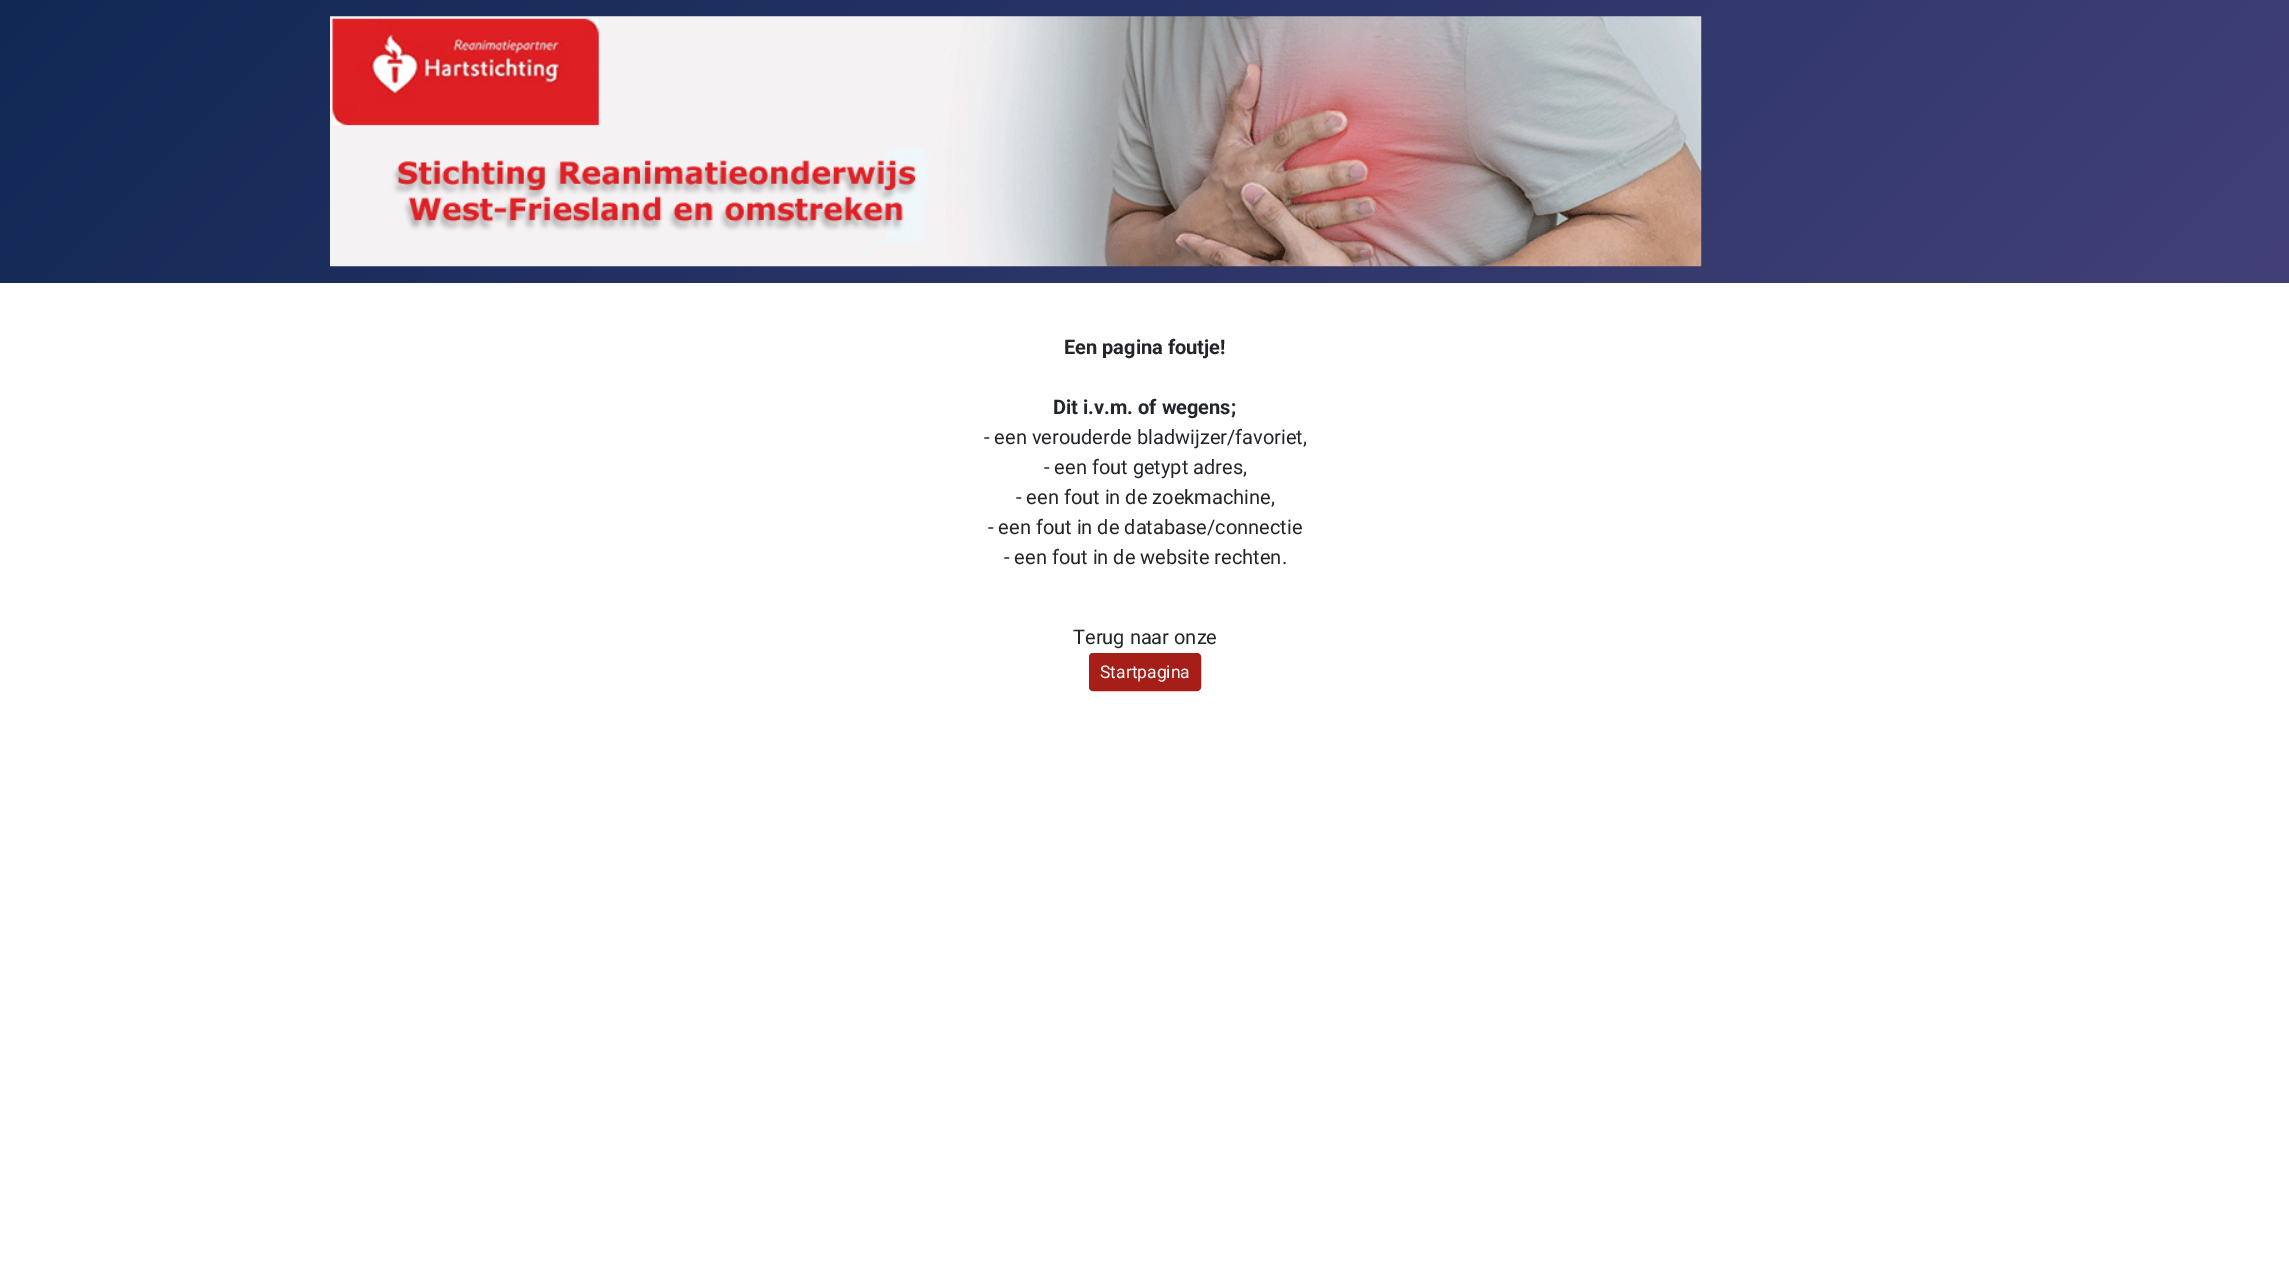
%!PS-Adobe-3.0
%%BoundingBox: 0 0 2289 1288
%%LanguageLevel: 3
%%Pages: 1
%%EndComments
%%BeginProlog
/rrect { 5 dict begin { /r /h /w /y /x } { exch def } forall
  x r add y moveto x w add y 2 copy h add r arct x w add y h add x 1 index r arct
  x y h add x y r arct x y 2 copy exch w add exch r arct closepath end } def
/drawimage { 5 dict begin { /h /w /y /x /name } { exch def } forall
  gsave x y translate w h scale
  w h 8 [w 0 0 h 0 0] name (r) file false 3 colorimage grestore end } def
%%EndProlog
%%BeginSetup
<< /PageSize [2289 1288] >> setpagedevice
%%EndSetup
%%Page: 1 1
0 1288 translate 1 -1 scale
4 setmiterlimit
1 setgray
0 0 2289 1288 rectfill
gsave newpath 0 0 moveto 2289 0 lineto 2289 283 lineto 0 283 lineto closepath clip newpath
<< /ShadingType 2 /ColorSpace /DeviceRGB /Coords [502 -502 1788 784] /Extend [true true] /Function << /FunctionType 2 /Domain [0 1] /C0 [0.067 0.157 0.333] /C1 [0.259 0.251 0.467] /N 1 >> >> shfill grestore
(images/1.raw) 330 16 1372 251 drawimage
0.647 0.122 0.094 setrgbcolor
1089.5 653.5 111 37 3.5 rrect gsave fill grestore
stroke
/Roboto-Bold [20 0 0 -20 0 0] selectfont
0.133 0.149 0.165 setrgbcolor
1064 354 moveto (Een pagina foutje!) show
1053 414 moveto (Dit i.v.m. of wegens;) show
/Roboto-Regular [20 0 0 -20 0 0] selectfont
984 444 moveto (- een verouderde bladwijzer/favoriet,) show
1044 474 moveto (- een fout getypt adres,) show
1016 504 moveto (- een fout in de zoekmachine,) show
988 534 moveto (- een fout in de database/connectie) show
1004 564 moveto (- een fout in de website rechten.) show
1073 644 moveto (Terug naar onze) show
/Roboto-Regular [17.5 0 0 -17.5 0 0] selectfont
1 setgray
1100 678 moveto (Startpagina) show
showpage
%%EOF
